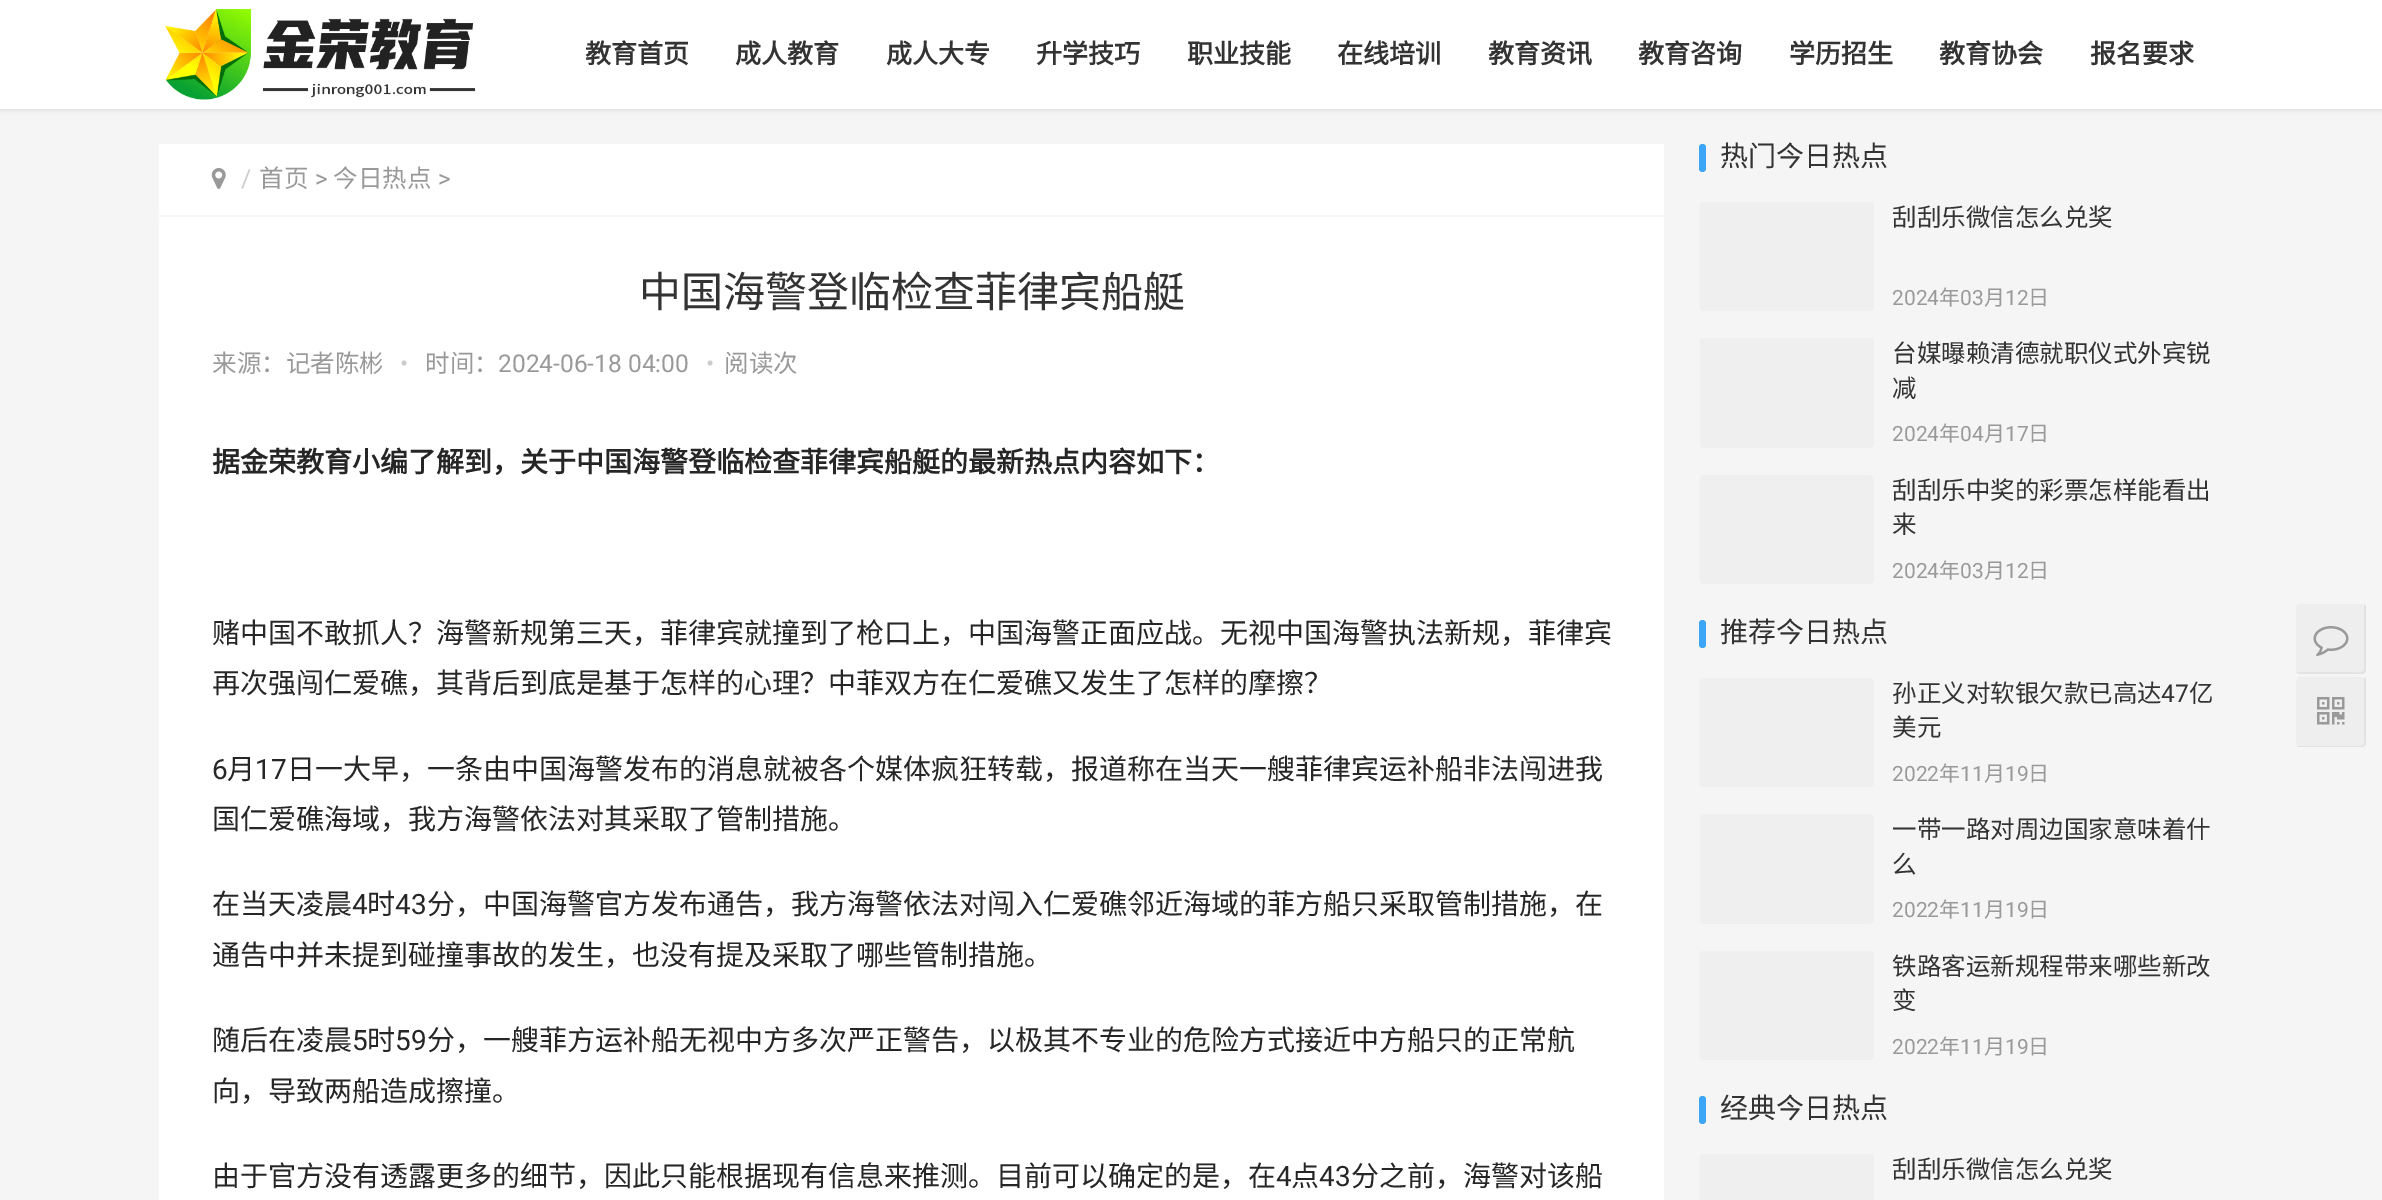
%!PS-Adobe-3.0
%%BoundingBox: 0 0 2382 1200
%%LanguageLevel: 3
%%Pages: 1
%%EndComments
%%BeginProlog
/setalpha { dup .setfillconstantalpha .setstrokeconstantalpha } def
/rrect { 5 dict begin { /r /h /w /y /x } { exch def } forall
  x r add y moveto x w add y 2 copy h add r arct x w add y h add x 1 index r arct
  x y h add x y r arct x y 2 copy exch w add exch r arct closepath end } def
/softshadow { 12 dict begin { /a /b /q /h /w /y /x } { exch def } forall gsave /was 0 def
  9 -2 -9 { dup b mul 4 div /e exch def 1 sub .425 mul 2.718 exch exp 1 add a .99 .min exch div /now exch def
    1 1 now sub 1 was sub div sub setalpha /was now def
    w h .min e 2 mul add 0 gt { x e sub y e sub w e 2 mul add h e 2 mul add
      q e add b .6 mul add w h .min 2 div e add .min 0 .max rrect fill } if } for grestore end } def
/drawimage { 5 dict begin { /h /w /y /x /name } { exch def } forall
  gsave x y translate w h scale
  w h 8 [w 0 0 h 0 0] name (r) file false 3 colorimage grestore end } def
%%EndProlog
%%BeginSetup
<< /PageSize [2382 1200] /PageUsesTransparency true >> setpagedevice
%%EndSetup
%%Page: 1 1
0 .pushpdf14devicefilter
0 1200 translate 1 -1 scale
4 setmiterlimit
0.961 setgray
0 0 2382 1200 rectfill
0 setgray
-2 -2 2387 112 0 2.5 0.1 softshadow
1 setgray
0 0 2382 109 rectfill
(images/1.raw) 165 9 311 91 drawimage
159 144 1505 71 rectfill
(images/2.raw) 211 168 15 21 drawimage
159 217 1505 983 rectfill
0.235 0.647 0.965 setrgbcolor
1699 144 7 28 3.5 rrect fill
(images/3.raw) 1699 202 175 109 drawimage
(images/4.raw) 1700 338 174 110 drawimage
(images/3.raw) 1699 475 175 109 drawimage
1699 620 7 28 3.5 rrect fill
(images/3.raw) 1699 678 175 109 drawimage
(images/4.raw) 1700 814 174 110 drawimage
(images/3.raw) 1699 951 175 109 drawimage
1699 1096 7 28 3.5 rrect fill
(images/5.raw) 1699 1154 175 46 drawimage
0.933 setgray
2296 604 70 70 4 rrect fill
0.886 setgray
newpath 2296 672 moveto 2297 673 2298 674 2300 674 curveto 2362 674 lineto 2364 674 2366 672 2366 670 curveto 2366 608 lineto 2366 606 2365 605 2364 604 curveto 2364 668 lineto 2364 675 2354 672 2350 672 curveto 2308 672 lineto 2304 672 2300 673 2296 672 curveto closepath fill
(images/6.raw) 2313 626 36 30 drawimage
0.933 setgray
2296 677 70 70 4 rrect fill
0.886 setgray
newpath 2297 746 moveto 2298 747 2299 747 2300 747 curveto 2362 747 lineto 2364 747 2366 745 2366 743 curveto 2366 681 lineto 2366 679 2365 678 2364 677 curveto 2364 732 lineto 2364 737 2366 746 2361 746 curveto closepath fill
(images/7.raw) 2317 697 28 28 drawimage
/NotoSansCJKSC-Bold [26 0 0 -26 0 0] selectfont
0.2 setgray
585 63 moveto (教育首页) show
735 63 moveto (成人教育) show
886 63 moveto (成人大专) show
1036 63 moveto (升学技巧) show
1187 63 moveto (职业技能) show
1337 63 moveto (在线培训) show
1488 63 moveto (教育资讯) show
1638 63 moveto (教育咨询) show
1789 63 moveto (学历招生) show
1939 63 moveto (教育协会) show
2090 63 moveto (报名要求) show
/Roboto-Regular [24.5 0 0 -24.5 0 0] selectfont
0.8 setgray
241 187 moveto (/) show
/NotoSansCJKSC-Regular [24.5 0 0 -24.5 0 0] selectfont
0.6 setgray
259 187 moveto (首页) show
/Roboto-Regular [24.5 0 0 -24.5 0 0] selectfont
315 187 moveto (>) show
/NotoSansCJKSC-Regular [24.5 0 0 -24.5 0 0] selectfont
333 187 moveto (今日热点) show
/Roboto-Regular [24.5 0 0 -24.5 0 0] selectfont
438 187 moveto (>) show
/NotoSansCJKSC-Regular [42 0 0 -42 0 0] selectfont
0.2 setgray
639 307 moveto (中国海警登临检查菲律宾船艇) show
/NotoSansCJKSC-Regular [24.5 0 0 -24.5 0 0] selectfont
0.6 setgray
212 372 moveto (来源：记者陈彬) show
/Roboto-Regular [24.5 0 0 -24.5 0 0] selectfont
0.8 setgray
400 372 moveto (•) show
/NotoSansCJKSC-Regular [24.5 0 0 -24.5 0 0] selectfont
0.6 setgray
425 372 moveto (时间：) show
/Roboto-Regular [24.5 0 0 -24.5 0 0] selectfont
498 372 moveto (2024-06-18 04:00) show
0.8 setgray
706 372 moveto (•) show
/NotoSansCJKSC-Regular [24.5 0 0 -24.5 0 0] selectfont
0.6 setgray
724 372 moveto (阅读次) show
/NotoSansCJKSC-Bold [28 0 0 -28 0 0] selectfont
0.149 setgray
212 472 moveto (据金荣教育小编了解到，关于中国海警登临检查菲律宾船艇的最新热点内容如下：) show
/NotoSansCJKSC-Regular [28 0 0 -28 0 0] selectfont
212 643 moveto (赌中国不敢抓人？海警新规第三天，菲律宾就撞到了枪口上，中国海警正面应战。无视中国海警执法新规，菲律宾) show
212 693 moveto (再次强闯仁爱礁，其背后到底是基于怎样的心理？中菲双方在仁爱礁又发生了怎样的摩擦？) show
/Roboto-Regular [28 0 0 -28 0 0] selectfont
212 779 moveto (6) show
/NotoSansCJKSC-Regular [28 0 0 -28 0 0] selectfont
227 779 moveto (月) show
/Roboto-Regular [28 0 0 -28 0 0] selectfont
255 779 moveto (17) show
/NotoSansCJKSC-Regular [28 0 0 -28 0 0] selectfont
287 779 moveto (日一大早，一条由中国海警发布的消息就被各个媒体疯狂转载，报道称在当天一艘菲律宾运补船非法闯进我) show
212 829 moveto (国仁爱礁海域，我方海警依法对其采取了管制措施。) show
212 914 moveto (在当天凌晨) show
/Roboto-Regular [28 0 0 -28 0 0] selectfont
352 914 moveto (4) show
/NotoSansCJKSC-Regular [28 0 0 -28 0 0] selectfont
367 914 moveto (时) show
/Roboto-Regular [28 0 0 -28 0 0] selectfont
395 914 moveto (43) show
/NotoSansCJKSC-Regular [28 0 0 -28 0 0] selectfont
427 914 moveto (分，中国海警官方发布通告，我方海警依法对闯入仁爱礁邻近海域的菲方船只采取管制措施，在) show
212 965 moveto (通告中并未提到碰撞事故的发生，也没有提及采取了哪些管制措施。) show
212 1050 moveto (随后在凌晨) show
/Roboto-Regular [28 0 0 -28 0 0] selectfont
352 1050 moveto (5) show
/NotoSansCJKSC-Regular [28 0 0 -28 0 0] selectfont
367 1050 moveto (时) show
/Roboto-Regular [28 0 0 -28 0 0] selectfont
395 1050 moveto (59) show
/NotoSansCJKSC-Regular [28 0 0 -28 0 0] selectfont
427 1050 moveto (分，一艘菲方运补船无视中方多次严正警告，以极其不专业的危险方式接近中方船只的正常航) show
212 1101 moveto (向，导致两船造成擦撞。) show
212 1186 moveto (由于官方没有透露更多的细节，因此只能根据现有信息来推测。目前可以确定的是，在) show
/Roboto-Regular [28 0 0 -28 0 0] selectfont
1276 1186 moveto (4) show
/NotoSansCJKSC-Regular [28 0 0 -28 0 0] selectfont
1291 1186 moveto (点) show
/Roboto-Regular [28 0 0 -28 0 0] selectfont
1319 1186 moveto (43) show
/NotoSansCJKSC-Regular [28 0 0 -28 0 0] selectfont
1351 1186 moveto (分之前，海警对该船) show
0.2 setgray
1720 166 moveto (热门今日热点) show
/NotoSansCJKSC-Regular [24.5 0 0 -24.5 0 0] selectfont
1892 226 moveto (刮刮乐微信怎么兑奖) show
/Roboto-Regular [21 0 0 -21 0 0] selectfont
0.6 setgray
1892 305 moveto (2024) show
/NotoSansCJKSC-Regular [21 0 0 -21 0 0] selectfont
1939 305 moveto (年) show
/Roboto-Regular [21 0 0 -21 0 0] selectfont
1960 305 moveto (03) show
/NotoSansCJKSC-Regular [21 0 0 -21 0 0] selectfont
1984 305 moveto (月) show
/Roboto-Regular [21 0 0 -21 0 0] selectfont
2005 305 moveto (12) show
/NotoSansCJKSC-Regular [21 0 0 -21 0 0] selectfont
2028 305 moveto (日) show
/NotoSansCJKSC-Regular [24.5 0 0 -24.5 0 0] selectfont
0.2 setgray
1892 362 moveto (台媒曝赖清德就职仪式外宾锐) show
1892 397 moveto (减) show
/Roboto-Regular [21 0 0 -21 0 0] selectfont
0.6 setgray
1892 441 moveto (2024) show
/NotoSansCJKSC-Regular [21 0 0 -21 0 0] selectfont
1939 441 moveto (年) show
/Roboto-Regular [21 0 0 -21 0 0] selectfont
1960 441 moveto (04) show
/NotoSansCJKSC-Regular [21 0 0 -21 0 0] selectfont
1984 441 moveto (月) show
/Roboto-Regular [21 0 0 -21 0 0] selectfont
2005 441 moveto (17) show
/NotoSansCJKSC-Regular [21 0 0 -21 0 0] selectfont
2028 441 moveto (日) show
/NotoSansCJKSC-Regular [24.5 0 0 -24.5 0 0] selectfont
0.2 setgray
1892 499 moveto (刮刮乐中奖的彩票怎样能看出) show
1892 533 moveto (来) show
/Roboto-Regular [21 0 0 -21 0 0] selectfont
0.6 setgray
1892 578 moveto (2024) show
/NotoSansCJKSC-Regular [21 0 0 -21 0 0] selectfont
1939 578 moveto (年) show
/Roboto-Regular [21 0 0 -21 0 0] selectfont
1960 578 moveto (03) show
/NotoSansCJKSC-Regular [21 0 0 -21 0 0] selectfont
1984 578 moveto (月) show
/Roboto-Regular [21 0 0 -21 0 0] selectfont
2005 578 moveto (12) show
/NotoSansCJKSC-Regular [21 0 0 -21 0 0] selectfont
2028 578 moveto (日) show
/NotoSansCJKSC-Regular [28 0 0 -28 0 0] selectfont
0.2 setgray
1720 642 moveto (推荐今日热点) show
/NotoSansCJKSC-Regular [24.5 0 0 -24.5 0 0] selectfont
1892 702 moveto (孙正义对软银欠款已高达) show
/Roboto-Regular [24.5 0 0 -24.5 0 0] selectfont
2161 702 moveto (47) show
/NotoSansCJKSC-Regular [24.5 0 0 -24.5 0 0] selectfont
2189 702 moveto (亿) show
1892 736 moveto (美元) show
/Roboto-Regular [21 0 0 -21 0 0] selectfont
0.6 setgray
1892 781 moveto (2022) show
/NotoSansCJKSC-Regular [21 0 0 -21 0 0] selectfont
1939 781 moveto (年) show
/Roboto-Regular [21 0 0 -21 0 0] selectfont
1960 781 moveto (11) show
/NotoSansCJKSC-Regular [21 0 0 -21 0 0] selectfont
1984 781 moveto (月) show
/Roboto-Regular [21 0 0 -21 0 0] selectfont
2005 781 moveto (19) show
/NotoSansCJKSC-Regular [21 0 0 -21 0 0] selectfont
2028 781 moveto (日) show
/NotoSansCJKSC-Regular [24.5 0 0 -24.5 0 0] selectfont
0.2 setgray
1892 838 moveto (一带一路对周边国家意味着什) show
1892 873 moveto (么) show
/Roboto-Regular [21 0 0 -21 0 0] selectfont
0.6 setgray
1892 917 moveto (2022) show
/NotoSansCJKSC-Regular [21 0 0 -21 0 0] selectfont
1939 917 moveto (年) show
/Roboto-Regular [21 0 0 -21 0 0] selectfont
1960 917 moveto (11) show
/NotoSansCJKSC-Regular [21 0 0 -21 0 0] selectfont
1984 917 moveto (月) show
/Roboto-Regular [21 0 0 -21 0 0] selectfont
2005 917 moveto (19) show
/NotoSansCJKSC-Regular [21 0 0 -21 0 0] selectfont
2028 917 moveto (日) show
/NotoSansCJKSC-Regular [24.5 0 0 -24.5 0 0] selectfont
0.2 setgray
1892 975 moveto (铁路客运新规程带来哪些新改) show
1892 1009 moveto (变) show
/Roboto-Regular [21 0 0 -21 0 0] selectfont
0.6 setgray
1892 1054 moveto (2022) show
/NotoSansCJKSC-Regular [21 0 0 -21 0 0] selectfont
1939 1054 moveto (年) show
/Roboto-Regular [21 0 0 -21 0 0] selectfont
1960 1054 moveto (11) show
/NotoSansCJKSC-Regular [21 0 0 -21 0 0] selectfont
1984 1054 moveto (月) show
/Roboto-Regular [21 0 0 -21 0 0] selectfont
2005 1054 moveto (19) show
/NotoSansCJKSC-Regular [21 0 0 -21 0 0] selectfont
2028 1054 moveto (日) show
/NotoSansCJKSC-Regular [28 0 0 -28 0 0] selectfont
0.2 setgray
1720 1118 moveto (经典今日热点) show
/NotoSansCJKSC-Regular [24.5 0 0 -24.5 0 0] selectfont
1892 1178 moveto (刮刮乐微信怎么兑奖) show
.poppdf14devicefilter showpage
%%EOF
